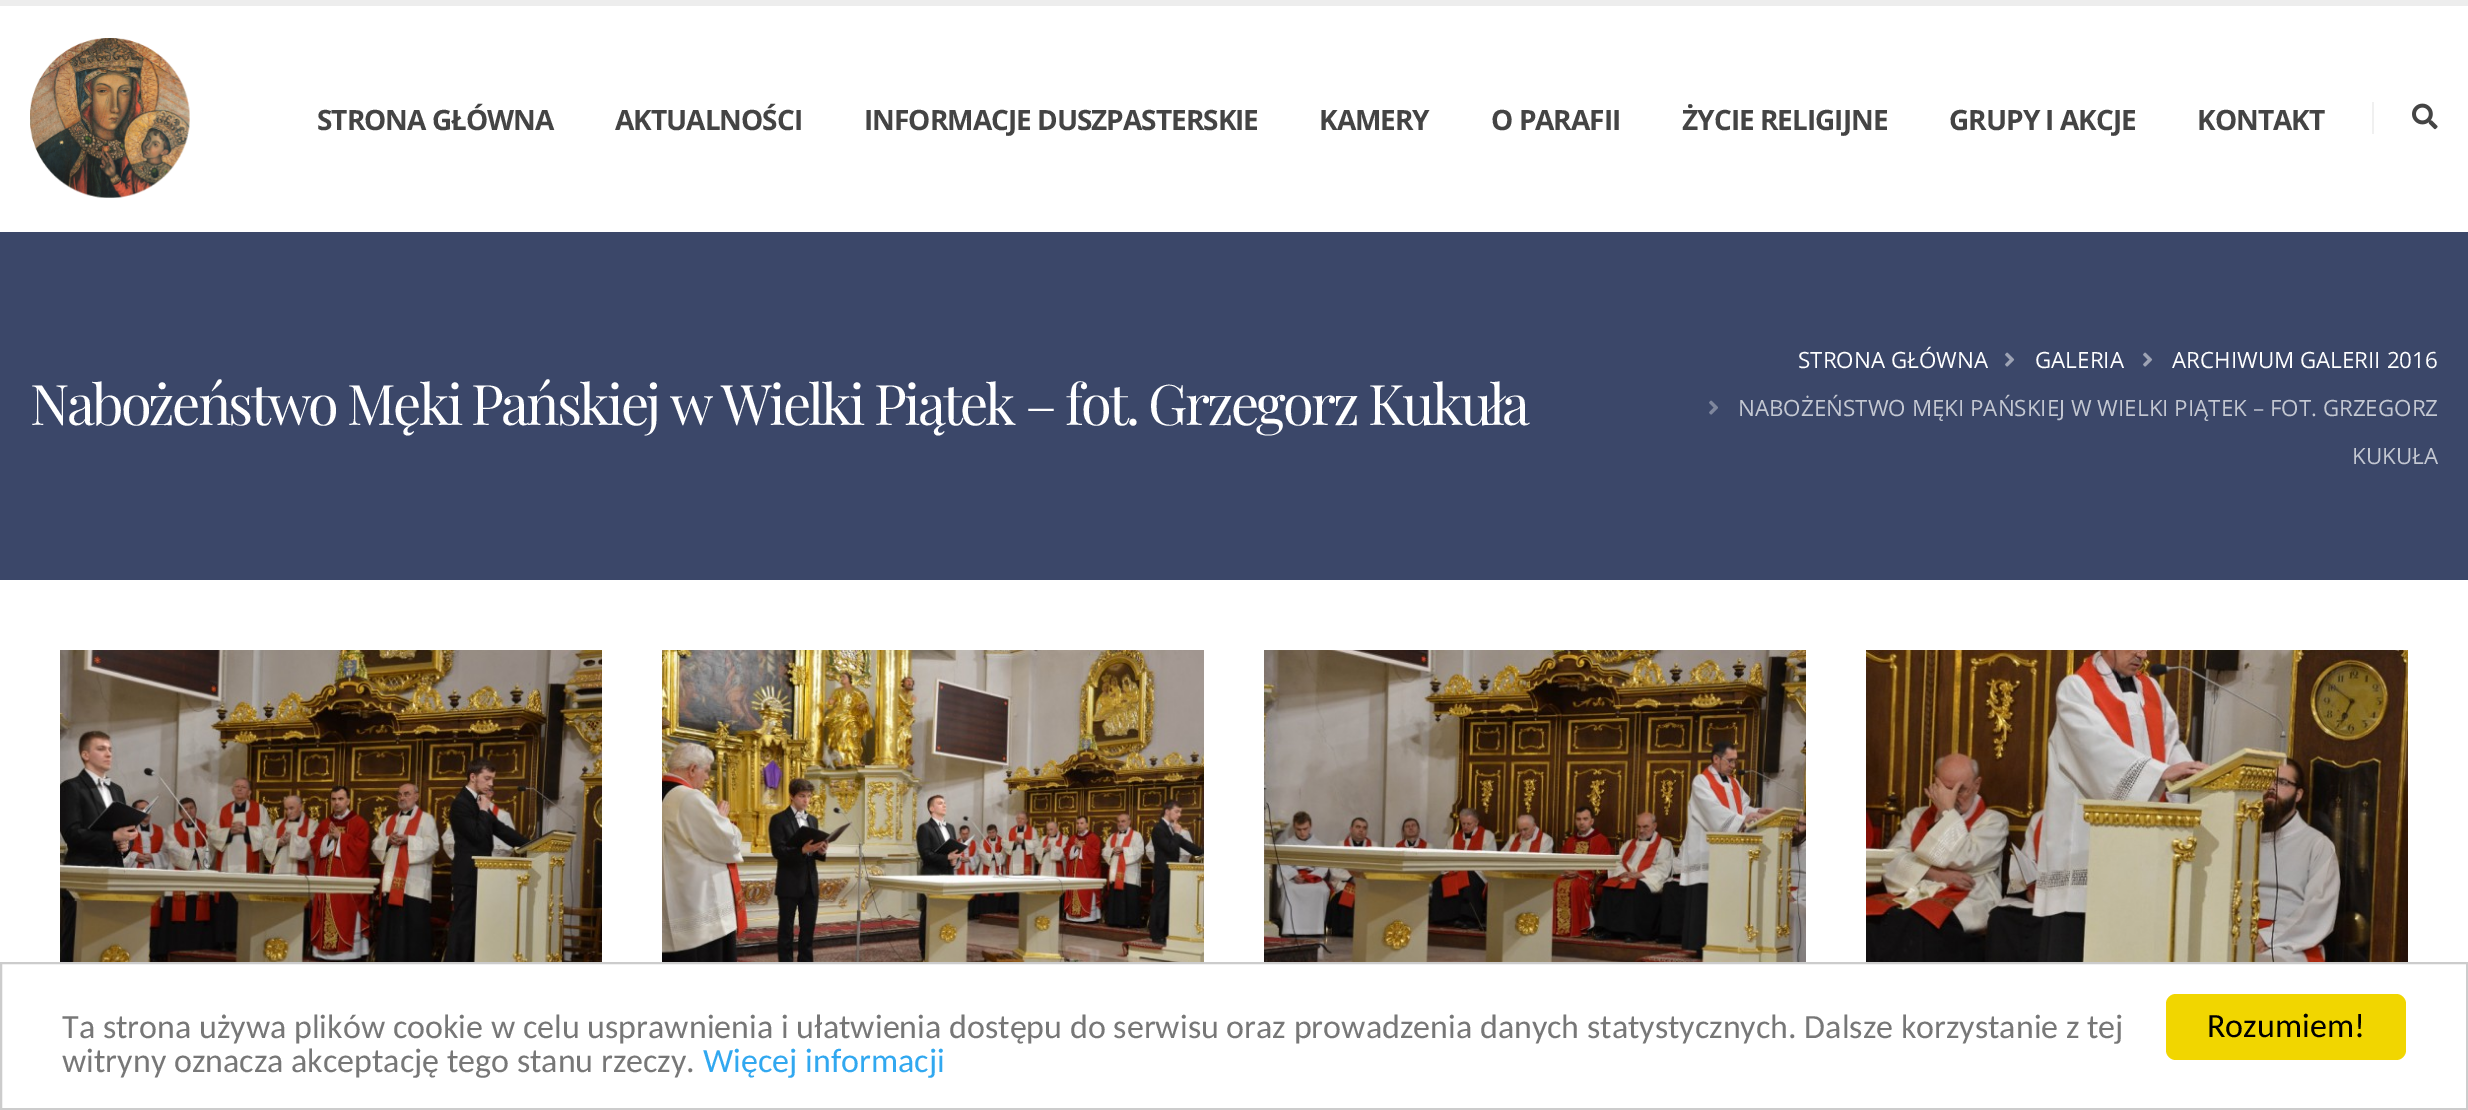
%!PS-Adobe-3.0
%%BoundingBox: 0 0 2468 1110
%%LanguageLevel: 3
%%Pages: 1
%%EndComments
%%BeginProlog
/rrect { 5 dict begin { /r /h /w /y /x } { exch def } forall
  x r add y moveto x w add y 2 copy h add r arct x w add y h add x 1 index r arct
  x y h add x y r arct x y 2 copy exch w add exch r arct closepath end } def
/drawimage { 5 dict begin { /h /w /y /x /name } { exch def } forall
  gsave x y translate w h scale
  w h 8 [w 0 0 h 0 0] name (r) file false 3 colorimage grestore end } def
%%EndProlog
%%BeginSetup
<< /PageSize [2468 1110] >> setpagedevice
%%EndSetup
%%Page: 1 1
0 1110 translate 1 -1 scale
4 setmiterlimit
1 setgray
0 0 2468 1110 rectfill
0.929 setgray
0 0 2468 6 rectfill
(images/1.raw) 30 38 160 160 drawimage
0.941 setgray
2372 102 2 32 rectfill
(images/2.raw) 2412 103 26 27 drawimage
0.231 0.278 0.412 setrgbcolor
0 232 2468 348 rectfill
(images/3.raw) 2005 352 10 15 drawimage
(images/3.raw) 2143 352 10 15 drawimage
(images/4.raw) 1709 400 9 15 drawimage
(images/5.raw) 60 650 542 312 drawimage
(images/6.raw) 662 650 542 312 drawimage
(images/7.raw) 1264 650 542 312 drawimage
(images/8.raw) 1866 650 542 312 drawimage
0.8 setgray
2 setlinewidth
1 963 2466 146 rectstroke
0.945 0.839 0 setrgbcolor
2166 994 240 66 10 rrect fill
/OpenSans-Bold [28 0 0 -28 0 0] selectfont
0.267 setgray
317 130 moveto -1 0 (STRONA GŁÓWNA) ashow
615 130 moveto -1 0 (AKTUALNOŚCI) ashow
864 130 moveto -1 0 (INFORMACJE DUSZPASTERSKIE) ashow
1319 130 moveto -1 0 (KAMERY) ashow
1491 130 moveto -1 0 (O PARAFII) ashow
1682 130 moveto -1 0 (ŻYCIE RELIGIJNE) ashow
1949 130 moveto -1 0 (GRUPY I AKCJE) ashow
2197 130 moveto -1 0 (KONTAKT) ashow
/PlayfairDisplay-Regular [56 0 0 -56 0 0] selectfont
1 setgray
30 425 moveto -2.8 0 (Nabożeństwo Męki Pańskiej w Wielki Piątek – fot. Grzegorz Kukuła) ashow
/OpenSans-Regular [22.4 0 0 -22.4 0 0] selectfont
1798 368 moveto (STRONA GŁÓWNA) show
2035 368 moveto (GALERIA) show
2172 368 moveto (ARCHIWUM GALERII 2016) show
0.769 0.784 0.824 setrgbcolor
1738 416 moveto (NABOŻEŃSTWO MĘKI PAŃSKIEJ W WIELKI PIĄTEK – FOT. GRZEGORZ) show
2352 464 moveto (KUKUŁA) show
/Carlito-Regular [34 0 0 -34 0 0] selectfont
0.467 setgray
62 1038 moveto (Ta strona używa plików cookie w celu usprawnienia i ułatwienia dostępu do serwisu oraz prowadzenia danych statystycznych. Dalsze korzystanie z tej) show
62 1072 moveto (witryny oznacza akceptację tego stanu rzeczy.) show
0.192 0.659 0.941 setrgbcolor
703 1072 moveto (Więcej informacji) show
0 setgray
2207 1037 moveto (Rozumiem!) show
showpage
%%EOF
